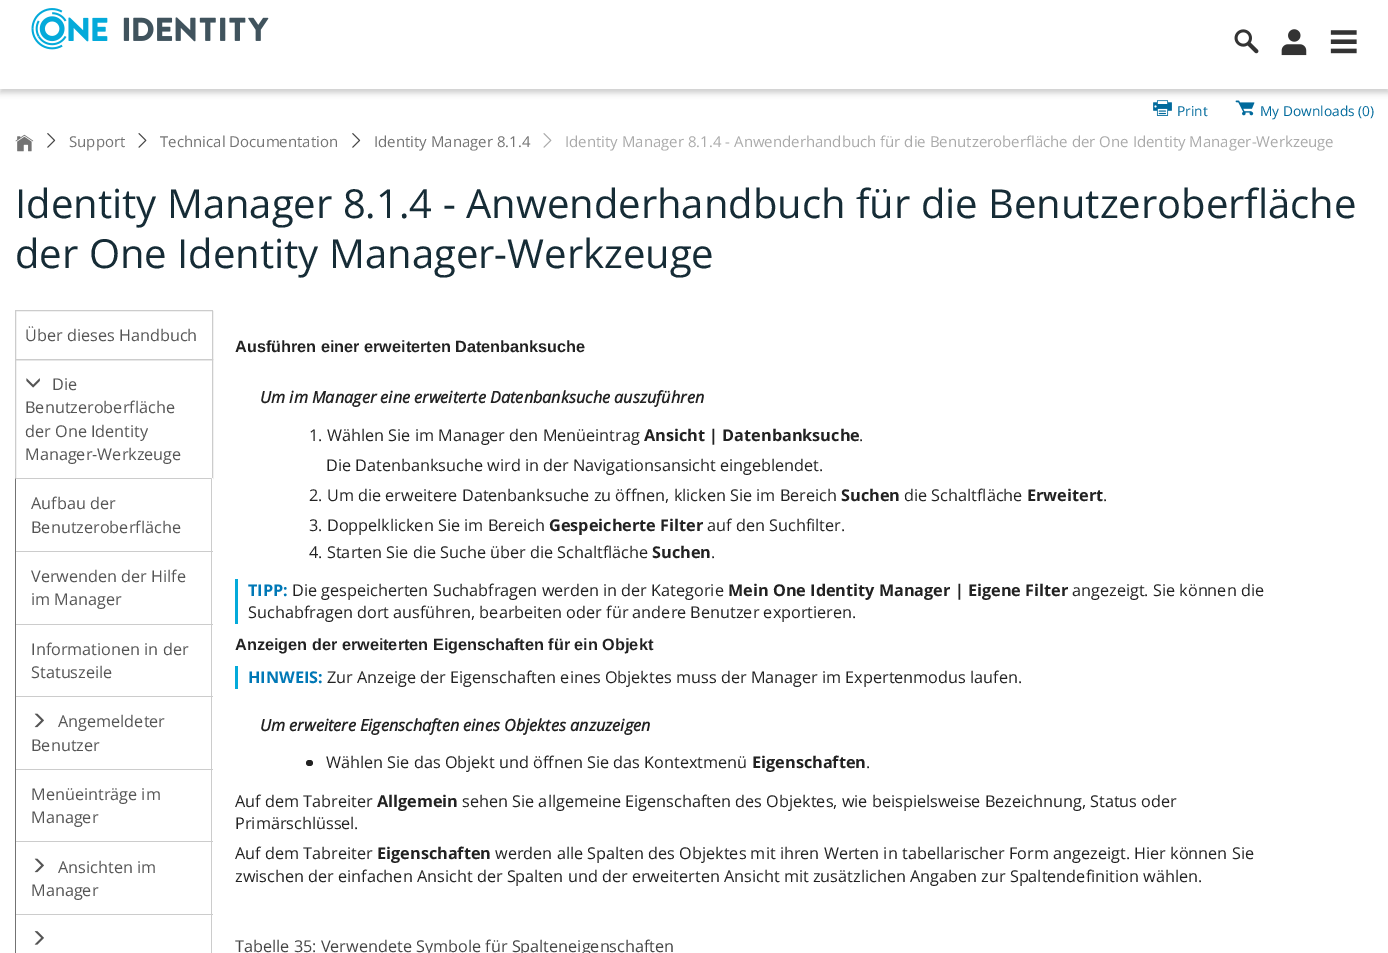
%!PS-Adobe-3.0
%%BoundingBox: 0 0 1388 953
%%LanguageLevel: 3
%%Pages: 1
%%EndComments
%%BeginProlog
/setalpha { dup .setfillconstantalpha .setstrokeconstantalpha } def
/rrect { 5 dict begin { /r /h /w /y /x } { exch def } forall
  x r add y moveto x w add y 2 copy h add r arct x w add y h add x 1 index r arct
  x y h add x y r arct x y 2 copy exch w add exch r arct closepath end } def
/softshadow { 12 dict begin { /a /b /q /h /w /y /x } { exch def } forall gsave /was 0 def
  9 -2 -9 { dup b mul 4 div /e exch def 1 sub .425 mul 2.718 exch exp 1 add a .99 .min exch div /now exch def
    1 1 now sub 1 was sub div sub setalpha /was now def
    w h .min e 2 mul add 0 gt { x e sub y e sub w e 2 mul add h e 2 mul add
      q e add b .6 mul add w h .min 2 div e add .min 0 .max rrect fill } if } for grestore end } def
/drawimage { 5 dict begin { /h /w /y /x /name } { exch def } forall
  gsave x y translate w h scale
  w h 8 [w 0 0 h 0 0] name (r) file false 3 colorimage grestore end } def
%%EndProlog
%%BeginSetup
<< /PageSize [1388 953] /PageUsesTransparency true >> setpagedevice
%%EndSetup
%%Page: 1 1
0 .pushpdf14devicefilter
0 953 translate 1 -1 scale
4 setmiterlimit
1 setgray
0 0 1388 953 rectfill
(images/5.raw) 1153 100 19 16 drawimage
(images/6.raw) 1235 100 20 16 drawimage
gsave
newpath 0 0 moveto 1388 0 lineto 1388 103 lineto 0 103 lineto closepath 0 -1 moveto 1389 -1 lineto 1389 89 lineto 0 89 lineto closepath eoclip newpath
0.804 setgray
0 3 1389 90 0 3 1 softshadow
grestore
(images/1.raw) 31 8 238 42 drawimage
(images/2.raw) 1234 29 25 25 drawimage
(images/3.raw) 1281 29 26 27 drawimage
(images/4.raw) 1330 30 27 24 drawimage
(images/7.raw) 15 134 19 18 drawimage
(images/8.raw) 47 133 9 15 drawimage
(images/9.raw) 138 133 9 15 drawimage
(images/8.raw) 352 133 9 15 drawimage
(images/10.raw) 543 133 9 15 drawimage
0.8 setgray
newpath 16 310.5 moveto 212 310.5 lineto 212.5 310.5 212.5 310.5 212.5 311 curveto 212.5 359.5 lineto 15.5 359.5 lineto 15.5 311 lineto 15.5 310.5 15.5 310.5 16 310.5 curveto closepath stroke
15.5 359.5 197 119 rectstroke
(images/11.raw) 26 378 14 10 drawimage
1 setgray
newpath 16 478 moveto 212 478 lineto 212.5 478 213 478.5 213 479 curveto 213 553 lineto 15 553 lineto 15 479 lineto 15 478.5 15.5 478 16 478 curveto closepath fill
0.8 setgray
newpath 16 478 moveto 16 479 lineto 211 479 lineto 212 478 lineto 211 478 lineto closepath fill
newpath 212 552 moveto 212 478 lineto 211 479 lineto 211 551 lineto closepath fill
0.451 setgray
newpath 16 479 moveto 15 478 lineto 15 552 lineto 16 551 lineto closepath fill
0.8 setgray
15 551 198 1 rectfill
211 551 1 74 rectfill
0.451 setgray
15 551 1 74 rectfill
0.8 setgray
15 624 198 1 rectfill
211 624 1 74 rectfill
0.451 setgray
15 624 1 74 rectfill
1 setgray
211 697 1 1 rectfill
0.8 setgray
15 696 198 1 rectfill
211 696 1 74 rectfill
0.451 setgray
15 696 1 74 rectfill
(images/12.raw) 34 713 10 15 drawimage
0.8 setgray
15 769 198 1 rectfill
211 769 1 74 rectfill
0.451 setgray
15 769 1 74 rectfill
1 setgray
211 842 1 1 rectfill
0.8 setgray
15 841 198 1 rectfill
211 841 1 74 rectfill
0.451 setgray
15 841 1 74 rectfill
(images/12.raw) 34 858 10 15 drawimage
0.8 setgray
15 914 198 1 rectfill
211 914 1 39 rectfill
0.451 setgray
15 914 1 39 rectfill
(images/13.raw) 34 931 10 14 drawimage
0.016 0.667 0.855 setrgbcolor
235 579 3 45 rectfill
235 666 3 23 rectfill
0.133 setgray
306 760 7 6 3 rrect fill
/OpenSans-Regular [13.75 0 0 -13.75 0 0] selectfont
0.004 0.416 0.612 setrgbcolor
1177 116 moveto (Print) show
1260 116 moveto (My Downloads \(0\)) show
/OpenSans-Regular [15 0 0 -15 0 0] selectfont
0.451 setgray
69 147 moveto (Support) show
160 147 moveto (Technical Documentation) show
374 147 moveto (Identity Manager 8.1.4) show
0.667 setgray
565 147 moveto (Identity Manager 8.1.4 - Anwenderhandbuch für die Benutzeroberfläche der One Identity Manager-Werkzeuge) show
/OpenSans-Regular [40 0 0 -40 0 0] selectfont
0.086 0.173 0.212 setrgbcolor
15 218 moveto (Identity Manager 8.1.4 - Anwenderhandbuch für die Benutzeroberfläche) show
15 268 moveto (der One Identity Manager-Werkzeuge) show
/OpenSans-Regular [16.25 0 0 -16.25 0 0] selectfont
0.333 setgray
25 341 moveto (Über dieses Handbuch) show
52 390 moveto (Die) show
25 413 moveto (Benutzeroberfläche) show
25 437 moveto (der One Identity) show
25 460 moveto (Manager-Werkzeuge) show
31 509 moveto (Aufbau der) show
31 533 moveto (Benutzeroberfläche) show
31 582 moveto (Verwenden der Hilfe) show
31 605 moveto (im Manager) show
31 655 moveto (Informationen in der) show
31 678 moveto (Statuszeile) show
58 727 moveto (Angemeldeter) show
31 751 moveto (Benutzer) show
31 800 moveto (Menüeinträge im) show
31 823 moveto (Manager) show
58 873 moveto (Ansichten im) show
31 896 moveto (Manager) show
/LiberationSans-Bold [16.25 0 0 -16.25 0 0] selectfont
0.133 setgray
235 352 moveto (Ausführen einer erweiterten Datenbanksuche) show
/OpenSans-BoldItalic [16.25 0 0 -16.25 0 0] selectfont
260 403 moveto (Um im Manager eine erweiterte Datenbanksuche auszuführen) show
/OpenSans-Regular [16.25 0 0 -16.25 0 0] selectfont
309 441 moveto (1. Wählen Sie im Manager den Menüeintrag) show
/OpenSans-Bold [16.25 0 0 -16.25 0 0] selectfont
644 441 moveto (Ansicht | Datenbanksuche) show
/OpenSans-Regular [16.25 0 0 -16.25 0 0] selectfont
859 441 moveto (.) show
326 471 moveto (Die Datenbanksuche wird in der Navigationsansicht eingeblendet.) show
309 501 moveto (2. Um die erweitere Datenbanksuche zu öffnen, klicken Sie im Bereich) show
/OpenSans-Bold [16.25 0 0 -16.25 0 0] selectfont
841 501 moveto (Suchen) show
/OpenSans-Regular [16.25 0 0 -16.25 0 0] selectfont
904 501 moveto (die Schaltfläche) show
/OpenSans-Bold [16.25 0 0 -16.25 0 0] selectfont
1027 501 moveto (Erweitert) show
/OpenSans-Regular [16.25 0 0 -16.25 0 0] selectfont
1103 501 moveto (.) show
309 531 moveto (3. Doppelklicken Sie im Bereich) show
/OpenSans-Bold [16.25 0 0 -16.25 0 0] selectfont
549 531 moveto (Gespeicherte Filter) show
/OpenSans-Regular [16.25 0 0 -16.25 0 0] selectfont
707 531 moveto (auf den Suchfilter.) show
309 558 moveto (4. Starten Sie die Suche über die Schaltfläche) show
/OpenSans-Bold [16.25 0 0 -16.25 0 0] selectfont
652 558 moveto (Suchen) show
/OpenSans-Regular [16.25 0 0 -16.25 0 0] selectfont
711 558 moveto (.) show
/OpenSans-Bold [16.25 0 0 -16.25 0 0] selectfont
0 0.471 0.714 setrgbcolor
248 596 moveto (TIPP:) show
/OpenSans-Regular [16.25 0 0 -16.25 0 0] selectfont
0.133 setgray
292 596 moveto (Die gespeicherten Suchabfragen werden in der Kategorie) show
/OpenSans-Bold [16.25 0 0 -16.25 0 0] selectfont
728 596 moveto (Mein One Identity Manager | Eigene Filter) show
/OpenSans-Regular [16.25 0 0 -16.25 0 0] selectfont
1072 596 moveto (angezeigt. Sie können die) show
248 618 moveto (Suchabfragen dort ausführen, bearbeiten oder für andere Benutzer exportieren.) show
/LiberationSans-Bold [16.25 0 0 -16.25 0 0] selectfont
235 650 moveto (Anzeigen der erweiterten Eigenschaften für ein Objekt) show
/OpenSans-Bold [16.25 0 0 -16.25 0 0] selectfont
0 0.471 0.714 setrgbcolor
248 683 moveto (HINWEIS:) show
/OpenSans-Regular [16.25 0 0 -16.25 0 0] selectfont
0.133 setgray
327 683 moveto (Zur Anzeige der Eigenschaften eines Objektes muss der Manager im Expertenmodus laufen.) show
/OpenSans-BoldItalic [16.25 0 0 -16.25 0 0] selectfont
260 731 moveto (Um erweitere Eigenschaften eines Objektes anzuzeigen) show
/OpenSans-Regular [16.25 0 0 -16.25 0 0] selectfont
326 768 moveto (Wählen Sie das Objekt und öffnen Sie das Kontextmenü) show
/OpenSans-Bold [16.25 0 0 -16.25 0 0] selectfont
752 768 moveto (Eigenschaften) show
/OpenSans-Regular [16.25 0 0 -16.25 0 0] selectfont
866 768 moveto (.) show
235 807 moveto (Auf dem Tabreiter) show
/OpenSans-Bold [16.25 0 0 -16.25 0 0] selectfont
377 807 moveto (Allgemein) show
/OpenSans-Regular [16.25 0 0 -16.25 0 0] selectfont
462 807 moveto (sehen Sie allgemeine Eigenschaften des Objektes, wie beispielsweise Bezeichnung, Status oder) show
235 829 moveto (Primärschlüssel.) show
235 859 moveto (Auf dem Tabreiter) show
/OpenSans-Bold [16.25 0 0 -16.25 0 0] selectfont
377 859 moveto (Eigenschaften) show
/OpenSans-Regular [16.25 0 0 -16.25 0 0] selectfont
495 859 moveto (werden alle Spalten des Objektes mit ihren Werten in tabellarischer Form angezeigt. Hier können Sie) show
235 882 moveto (zwischen der einfachen Ansicht der Spalten und der erweiterten Ansicht mit zusätzlichen Angaben zur Spaltendefinition wählen.) show
0.267 setgray
235 952 moveto (Tabelle 35: Verwendete Symbole für Spalteneigenschaften) show
.poppdf14devicefilter showpage
%%EOF
